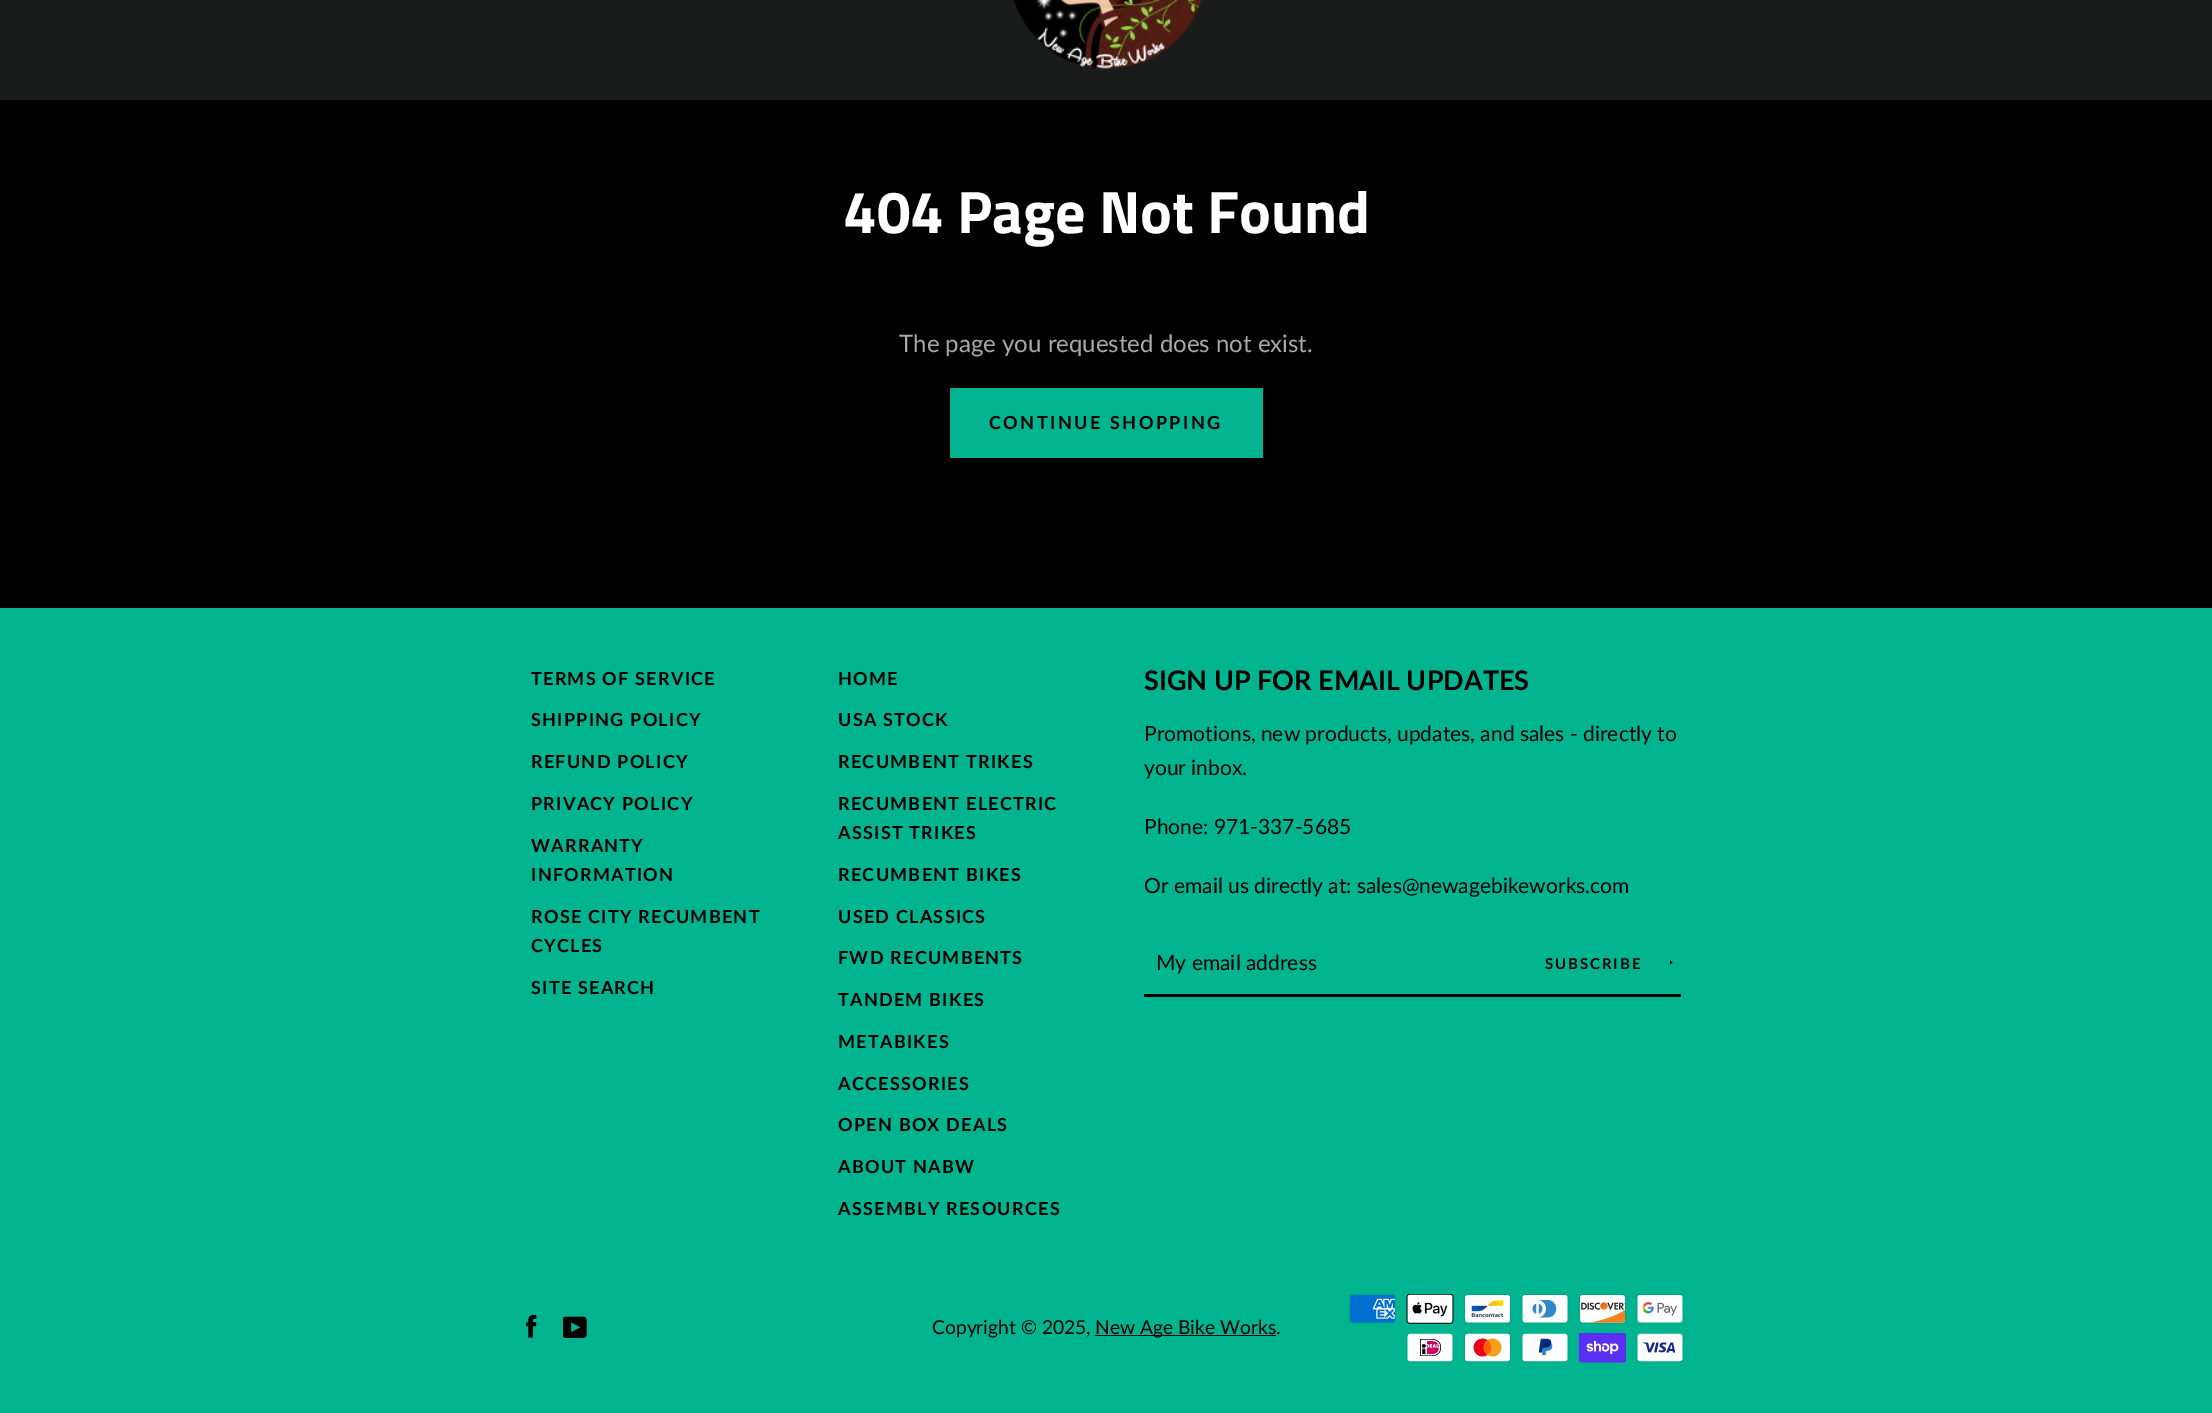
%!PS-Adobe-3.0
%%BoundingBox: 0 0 2212 1413
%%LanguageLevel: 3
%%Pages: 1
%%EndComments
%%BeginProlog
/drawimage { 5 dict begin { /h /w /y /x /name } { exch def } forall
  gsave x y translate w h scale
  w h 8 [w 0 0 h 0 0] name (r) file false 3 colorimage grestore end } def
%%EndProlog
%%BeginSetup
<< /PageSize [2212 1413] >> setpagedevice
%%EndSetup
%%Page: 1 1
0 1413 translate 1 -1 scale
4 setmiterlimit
0 setgray
0 0 2212 1413 rectfill
0.098 0.11 0.106 setrgbcolor
0 0 2212 100 rectfill
(images/1.raw) 1013 0 189 69 drawimage
0 0.706 0.565 setrgbcolor
950 388 313 70 rectfill
0 608 2212 805 rectfill
0 setgray
1144 994 537 3 rectfill
newpath 1672.5 962.5 moveto 1670 964.5 lineto 1670 960.5 lineto closepath fill
(images/2.raw) 526 1315 11 23 drawimage
(images/3.raw) 563 1316 24 22 drawimage
1095 1335 181 1 rectfill
(images/4.raw) 1349 1294 47 30 drawimage
(images/5.raw) 1406 1294 48 30 drawimage
(images/6.raw) 1464 1294 47 30 drawimage
(images/7.raw) 1521 1294 48 30 drawimage
(images/8.raw) 1579 1294 47 30 drawimage
(images/9.raw) 1636 1294 48 30 drawimage
(images/10.raw) 1406 1333 48 30 drawimage
(images/11.raw) 1464 1333 47 30 drawimage
(images/12.raw) 1521 1333 48 30 drawimage
(images/13.raw) 1579 1333 47 30 drawimage
(images/14.raw) 1636 1333 48 30 drawimage
/TitilliumWeb-Bold [60 0 0 -60 0 0] selectfont
1 setgray
843 233 moveto (404 Page Not Found) show
/Lato-Regular [24 0 0 -24 0 0] selectfont
0.663 setgray
899 352 moveto (The page you requested does not exist.) show
/Lato-Bold [18 0 0 -18 0 0] selectfont
0 setgray
989 429 moveto 2.5 0 (CONTINUE SHOPPING) ashow
531 685 moveto 1.25 0 (TERMS OF SERVICE) ashow
531 726 moveto 1.25 0 (SHIPPING POLICY) ashow
531 768 moveto 1.25 0 (REFUND POLICY) ashow
531 810 moveto 1.25 0 (PRIVACY POLICY) ashow
531 852 moveto 1.25 0 (WARRANTY) ashow
531 881 moveto 1.25 0 (INFORMATION) ashow
531 923 moveto 1.25 0 (ROSE CITY RECUMBENT) ashow
531 952 moveto 1.25 0 (CYCLES) ashow
531 994 moveto 1.25 0 (SITE SEARCH) ashow
838 685 moveto 1.25 0 (HOME) ashow
838 726 moveto 1.25 0 (USA STOCK) ashow
838 768 moveto 1.25 0 (RECUMBENT TRIKES) ashow
838 810 moveto 1.25 0 (RECUMBENT ELECTRIC) ashow
838 839 moveto 1.25 0 (ASSIST TRIKES) ashow
838 881 moveto 1.25 0 (RECUMBENT BIKES) ashow
838 923 moveto 1.25 0 (USED CLASSICS) ashow
838 964 moveto 1.25 0 (FWD RECUMBENTS) ashow
838 1006 moveto 1.25 0 (TANDEM BIKES) ashow
838 1048 moveto 1.25 0 (METABIKES) ashow
838 1090 moveto 1.25 0 (ACCESSORIES) ashow
838 1131 moveto 1.25 0 (OPEN BOX DEALS) ashow
838 1173 moveto 1.25 0 (ABOUT NABW) ashow
838 1215 moveto 1.25 0 (ASSEMBLY RESOURCES) ashow
/Lato-Bold [27 0 0 -27 0 0] selectfont
1144 690 moveto (SIGN UP FOR EMAIL UPDATES) show
/Lato-Regular [21 0 0 -21 0 0] selectfont
1144 741 moveto (Promotions, new products, updates, and sales - directly to) show
1144 775 moveto (your inbox.) show
1144 834 moveto (Phone: 971-337-5685) show
1144 893 moveto (Or email us directly at: sales@newagebikeworks.com) show
1156 970 moveto (My email address) show
/Lato-Bold [15 0 0 -15 0 0] selectfont
1545 969 moveto 1.9 0 (SUBSCRIBE) ashow
/Lato-Regular [19.25 0 0 -19.25 0 0] selectfont
932 1334 moveto (Copyright © 2025,) show
1095 1334 moveto (New Age Bike Works.) show
showpage
%%EOF
